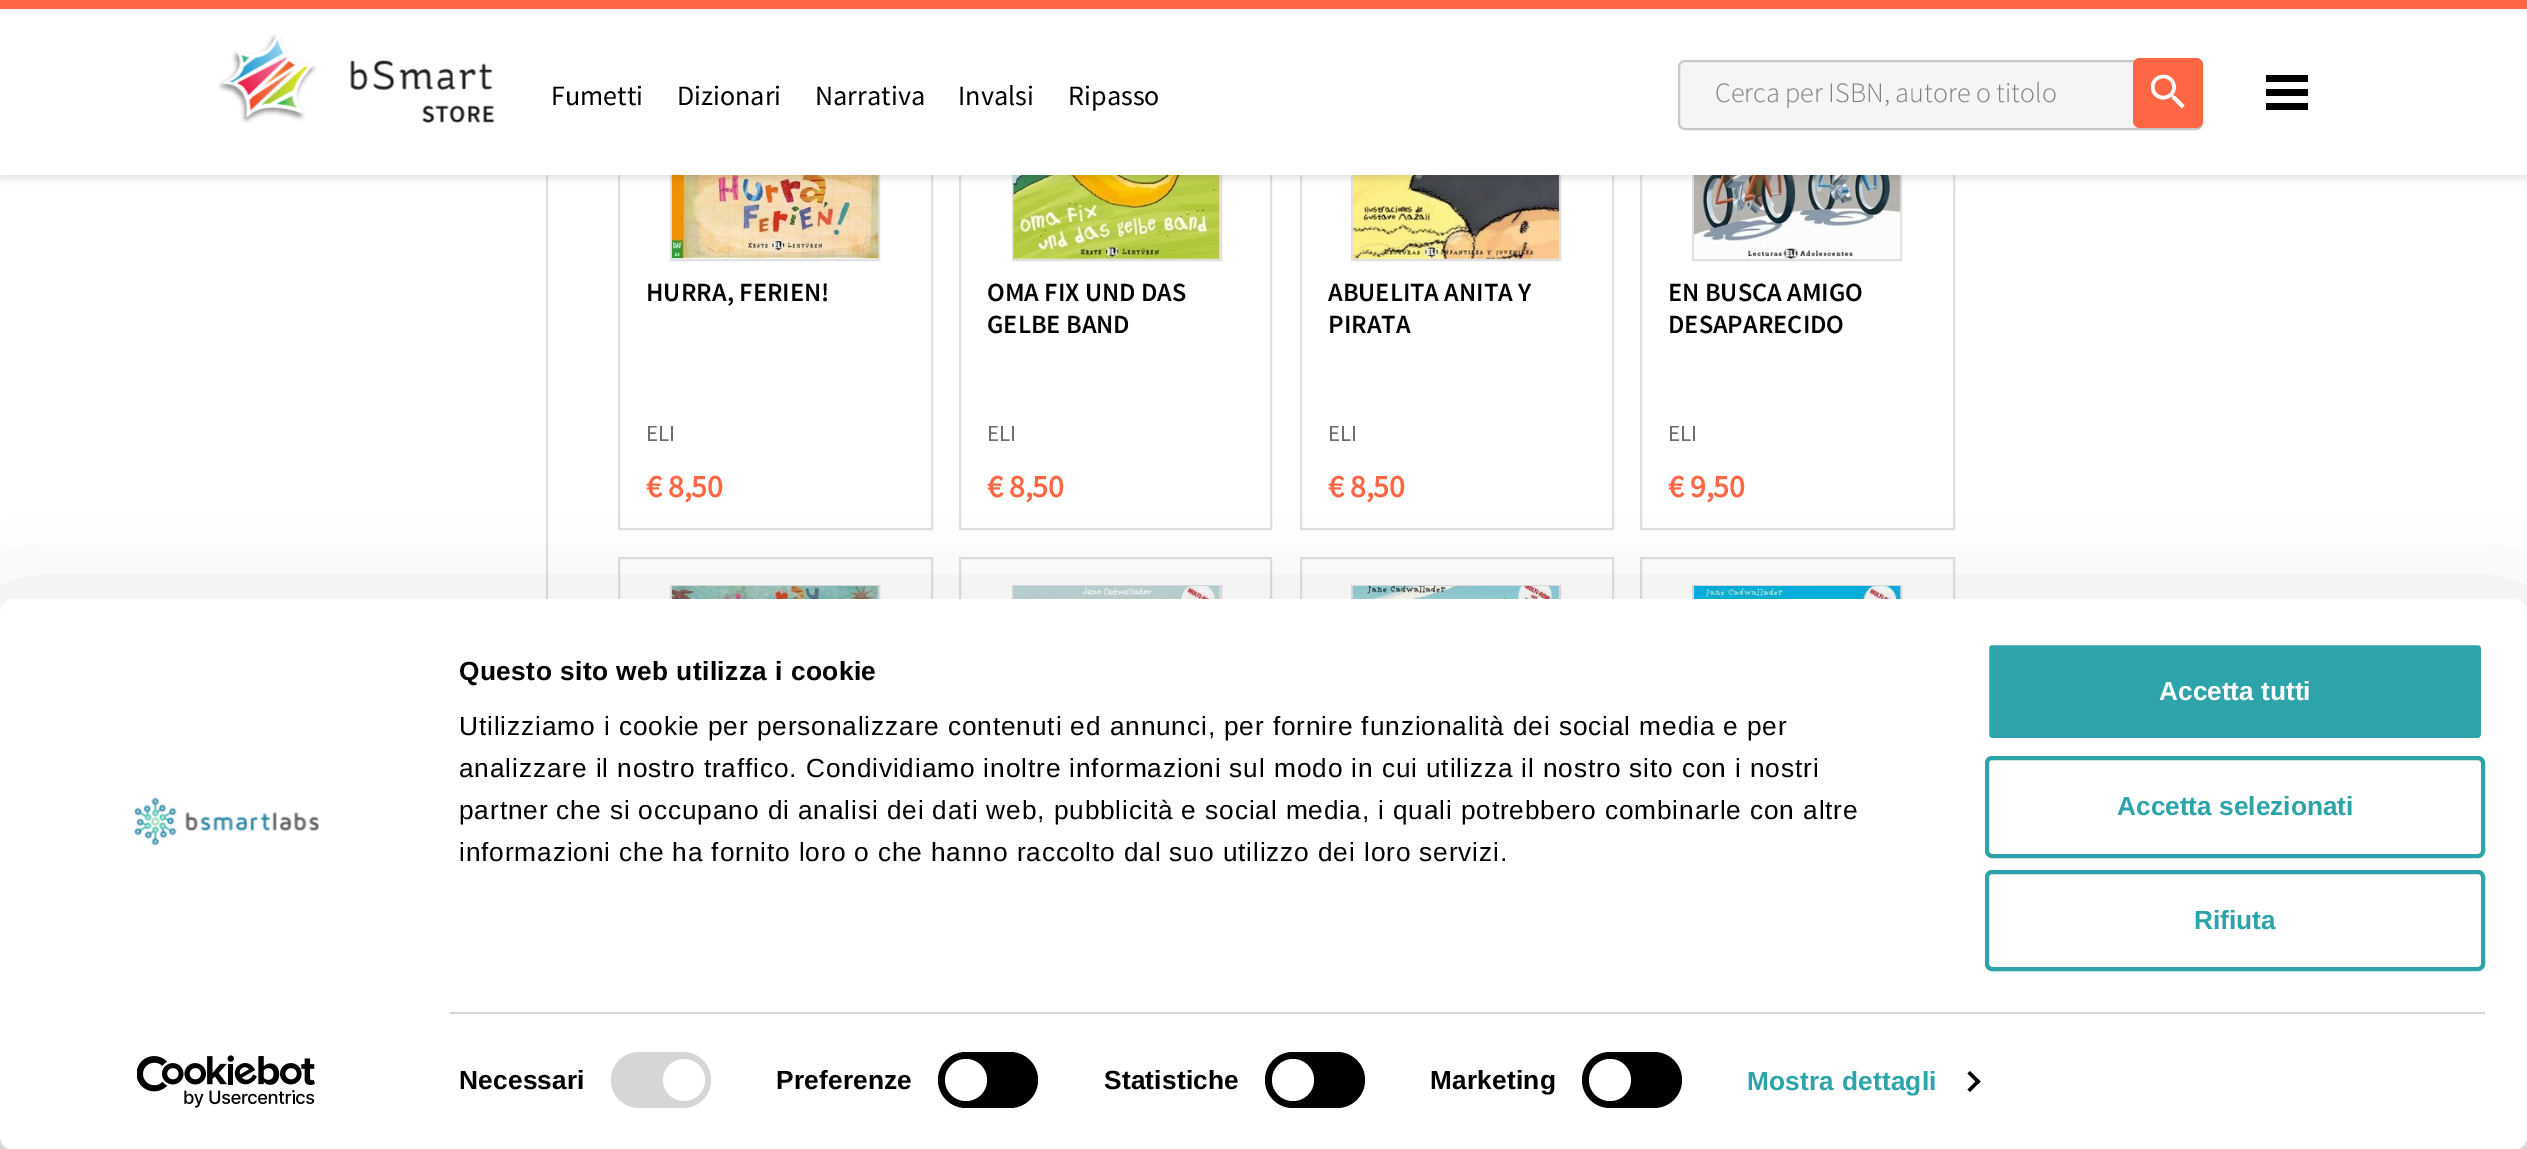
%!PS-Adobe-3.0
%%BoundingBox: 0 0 2527 1149
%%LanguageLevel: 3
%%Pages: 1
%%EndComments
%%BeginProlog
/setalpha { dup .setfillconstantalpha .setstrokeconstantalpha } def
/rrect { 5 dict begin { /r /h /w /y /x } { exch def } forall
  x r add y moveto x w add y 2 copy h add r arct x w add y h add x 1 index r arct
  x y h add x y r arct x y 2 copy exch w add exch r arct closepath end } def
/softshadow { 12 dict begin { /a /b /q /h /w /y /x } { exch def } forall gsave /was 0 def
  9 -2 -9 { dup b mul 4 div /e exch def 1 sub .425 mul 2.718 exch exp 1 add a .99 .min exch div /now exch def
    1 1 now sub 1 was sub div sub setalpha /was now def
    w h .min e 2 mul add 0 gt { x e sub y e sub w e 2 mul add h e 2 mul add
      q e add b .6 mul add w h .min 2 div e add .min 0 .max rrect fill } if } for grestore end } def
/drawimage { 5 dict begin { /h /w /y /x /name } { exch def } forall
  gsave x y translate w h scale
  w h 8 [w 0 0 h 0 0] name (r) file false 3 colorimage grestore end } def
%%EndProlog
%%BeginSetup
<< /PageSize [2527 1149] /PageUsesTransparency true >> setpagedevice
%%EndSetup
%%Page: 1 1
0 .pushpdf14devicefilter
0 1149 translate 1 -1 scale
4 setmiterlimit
1 setgray
0 0 2527 1149 rectfill
0.878 setgray
546 175 2 424 rectfill
2 setlinewidth
619 -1 313 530 rectstroke
671 -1 208 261 rectstroke
(images/3.raw) 672 175 207 84 drawimage
960 -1 311 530 rectstroke
1013 -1 208 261 rectstroke
(images/4.raw) 1013 175 207 84 drawimage
1301 -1 312 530 rectstroke
1352 -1 208 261 rectstroke
(images/5.raw) 1352 175 208 84 drawimage
1641 -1 313 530 rectstroke
1693 -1 208 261 rectstroke
(images/6.raw) 1694 175 207 84 drawimage
0 setgray
0 4 2527 175 0 3.5 0.1 softshadow
1 setgray
0 9 2527 166 rectfill
1 0.4 0.263 setrgbcolor
0 0 2527 9 rectfill
(images/1.raw) 218 34 276 89 drawimage
0.961 setgray
1679 61 523 68 6 rrect gsave fill grestore
0.788 0.78 0.78 setrgbcolor
stroke
1 0.4 0.263 setrgbcolor
2133 58 70 70 7 rrect fill
(images/2.raw) 2151 74 34 35 drawimage
0 setgray
2266 75 42 7 rectfill
2266 89 42 7 rectfill
2266 103 42 7 rectfill
0.878 setgray
619 558 313 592 rectstroke
671 586 208 295 rectstroke
(images/7.raw) 672 586 207 13 drawimage
960 558 311 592 rectstroke
1013 586 208 295 rectstroke
(images/8.raw) 1013 586 207 13 drawimage
1301 558 312 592 rectstroke
1352 586 208 295 rectstroke
(images/9.raw) 1352 586 208 13 drawimage
1641 558 313 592 rectstroke
1693 586 208 295 rectstroke
(images/10.raw) 1694 586 207 13 drawimage
0 setgray
0 651 2527 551 14 61 0.3 softshadow
1 setgray
0 599 2527 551 14 rrect fill
(images/11.raw) 134 797 185 49 drawimage
(images/12.raw) 137 1055 178 53 drawimage
0.839 setgray
450 1012 2035 2 rectfill
611 1052 100 56 28 rrect fill
1 setgray
newpath 684 1080 21 0 360 arc closepath fill
0 setgray
938 1052 100 56 28 rrect fill
1 setgray
newpath 966 1080 21 0 360 arc closepath fill
0 setgray
1265 1052 100 56 28 rrect fill
1 setgray
newpath 1293 1080 21 0 360 arc closepath fill
0 setgray
1582 1052 100 56 28 rrect fill
1 setgray
newpath 1610 1080 21 0 360 arc closepath fill
0 setgray
newpath 1970 1071 moveto 1980.5 1081.5 lineto 1978 1084 lineto 1967.5 1073.5 lineto closepath fill
newpath 1978 1079 moveto 1980.5 1081.5 lineto 1970 1092 lineto 1967.5 1089.5 lineto closepath fill
0.176 0.643 0.667 setrgbcolor
1987 643 496 97 5 rrect gsave fill grestore
1 setgray
4 setlinewidth
stroke
0.176 0.643 0.667 setrgbcolor
1987 758 496 98 5 rrect stroke
1987 872 496 97 5 rrect stroke
/SourceSansPro-Regular [28 0 0 -28 0 0] selectfont
0 setgray
551 105 moveto (Fumetti) show
677 105 moveto (Dizionari) show
815 105 moveto (Narrativa) show
958 105 moveto (Invalsi) show
1068 105 moveto (Ripasso) show
/SourceSansPro-Light [28 0 0 -28 0 0] selectfont
0.502 setgray
1715 102 moveto (Cerca per ISBN, autore o titolo) show
/SourceSansPro-SemiBold [26.25 0 0 -26.25 0 0] selectfont
0 setgray
646 301 moveto (HURRA, FERIEN!) show
/SourceSansPro-Regular [23 0 0 -23 0 0] selectfont
0.439 0.435 0.435 setrgbcolor
646 441 moveto (ELI) show
/SourceSansPro-Bold [31.5 0 0 -31.5 0 0] selectfont
1 0.4 0.263 setrgbcolor
646 497 moveto (€ 8,50) show
/SourceSansPro-SemiBold [26.25 0 0 -26.25 0 0] selectfont
0 setgray
987 301 moveto (OMA FIX UND DAS) show
987 333 moveto (GELBE BAND) show
/SourceSansPro-Regular [23 0 0 -23 0 0] selectfont
0.439 0.435 0.435 setrgbcolor
987 441 moveto (ELI) show
/SourceSansPro-Bold [31.5 0 0 -31.5 0 0] selectfont
1 0.4 0.263 setrgbcolor
987 497 moveto (€ 8,50) show
/SourceSansPro-SemiBold [26.25 0 0 -26.25 0 0] selectfont
0 setgray
1328 301 moveto (ABUELITA ANITA Y) show
1328 333 moveto (PIRATA) show
/SourceSansPro-Regular [23 0 0 -23 0 0] selectfont
0.439 0.435 0.435 setrgbcolor
1328 441 moveto (ELI) show
/SourceSansPro-Bold [31.5 0 0 -31.5 0 0] selectfont
1 0.4 0.263 setrgbcolor
1328 497 moveto (€ 8,50) show
/SourceSansPro-SemiBold [26.25 0 0 -26.25 0 0] selectfont
0 setgray
1668 301 moveto (EN BUSCA AMIGO) show
1668 333 moveto (DESAPARECIDO) show
/SourceSansPro-Regular [23 0 0 -23 0 0] selectfont
0.439 0.435 0.435 setrgbcolor
1668 441 moveto (ELI) show
/SourceSansPro-Bold [31.5 0 0 -31.5 0 0] selectfont
1 0.4 0.263 setrgbcolor
1668 497 moveto (€ 9,50) show
/LiberationSans-Bold [26.25 0 0 -26.25 0 0] selectfont
0 setgray
459 680 moveto 0.45 0 (Questo sito web utilizza i cookie) ashow
/LiberationSans-Regular [26.25 0 0 -26.25 0 0] selectfont
459 735 moveto 0.88 0 (Utilizziamo i cookie per personalizzare contenuti ed annunci, per fornire funzionalità dei social media e per) ashow
459 777 moveto 0.88 0 (analizzare il nostro traffico. Condividiamo inoltre informazioni sul modo in cui utilizza il nostro sito con i nostri) ashow
459 819 moveto 0.88 0 (partner che si occupano di analisi dei dati web, pubblicità e social media, i quali potrebbero combinarle con altre) ashow
459 861 moveto 0.88 0 (informazioni che ha fornito loro o che hanno raccolto dal suo utilizzo dei loro servizi.) ashow
/LiberationSans-Bold [26.25 0 0 -26.25 0 0] selectfont
459 1089 moveto 0.2 0 (Necessari) ashow
776 1089 moveto 0.2 0 (Preferenze) ashow
1104 1089 moveto 0.2 0 (Statistiche) ashow
1430 1089 moveto 0.2 0 (Marketing) ashow
0.176 0.643 0.667 setrgbcolor
1747 1090 moveto 0.2 0 (Mostra dettagli) ashow
1 setgray
2159 700 moveto (Accetta tutti) show
0.176 0.643 0.667 setrgbcolor
2117 815 moveto (Accetta selezionati) show
2194 929 moveto (Rifiuta) show
.poppdf14devicefilter showpage
%%EOF
